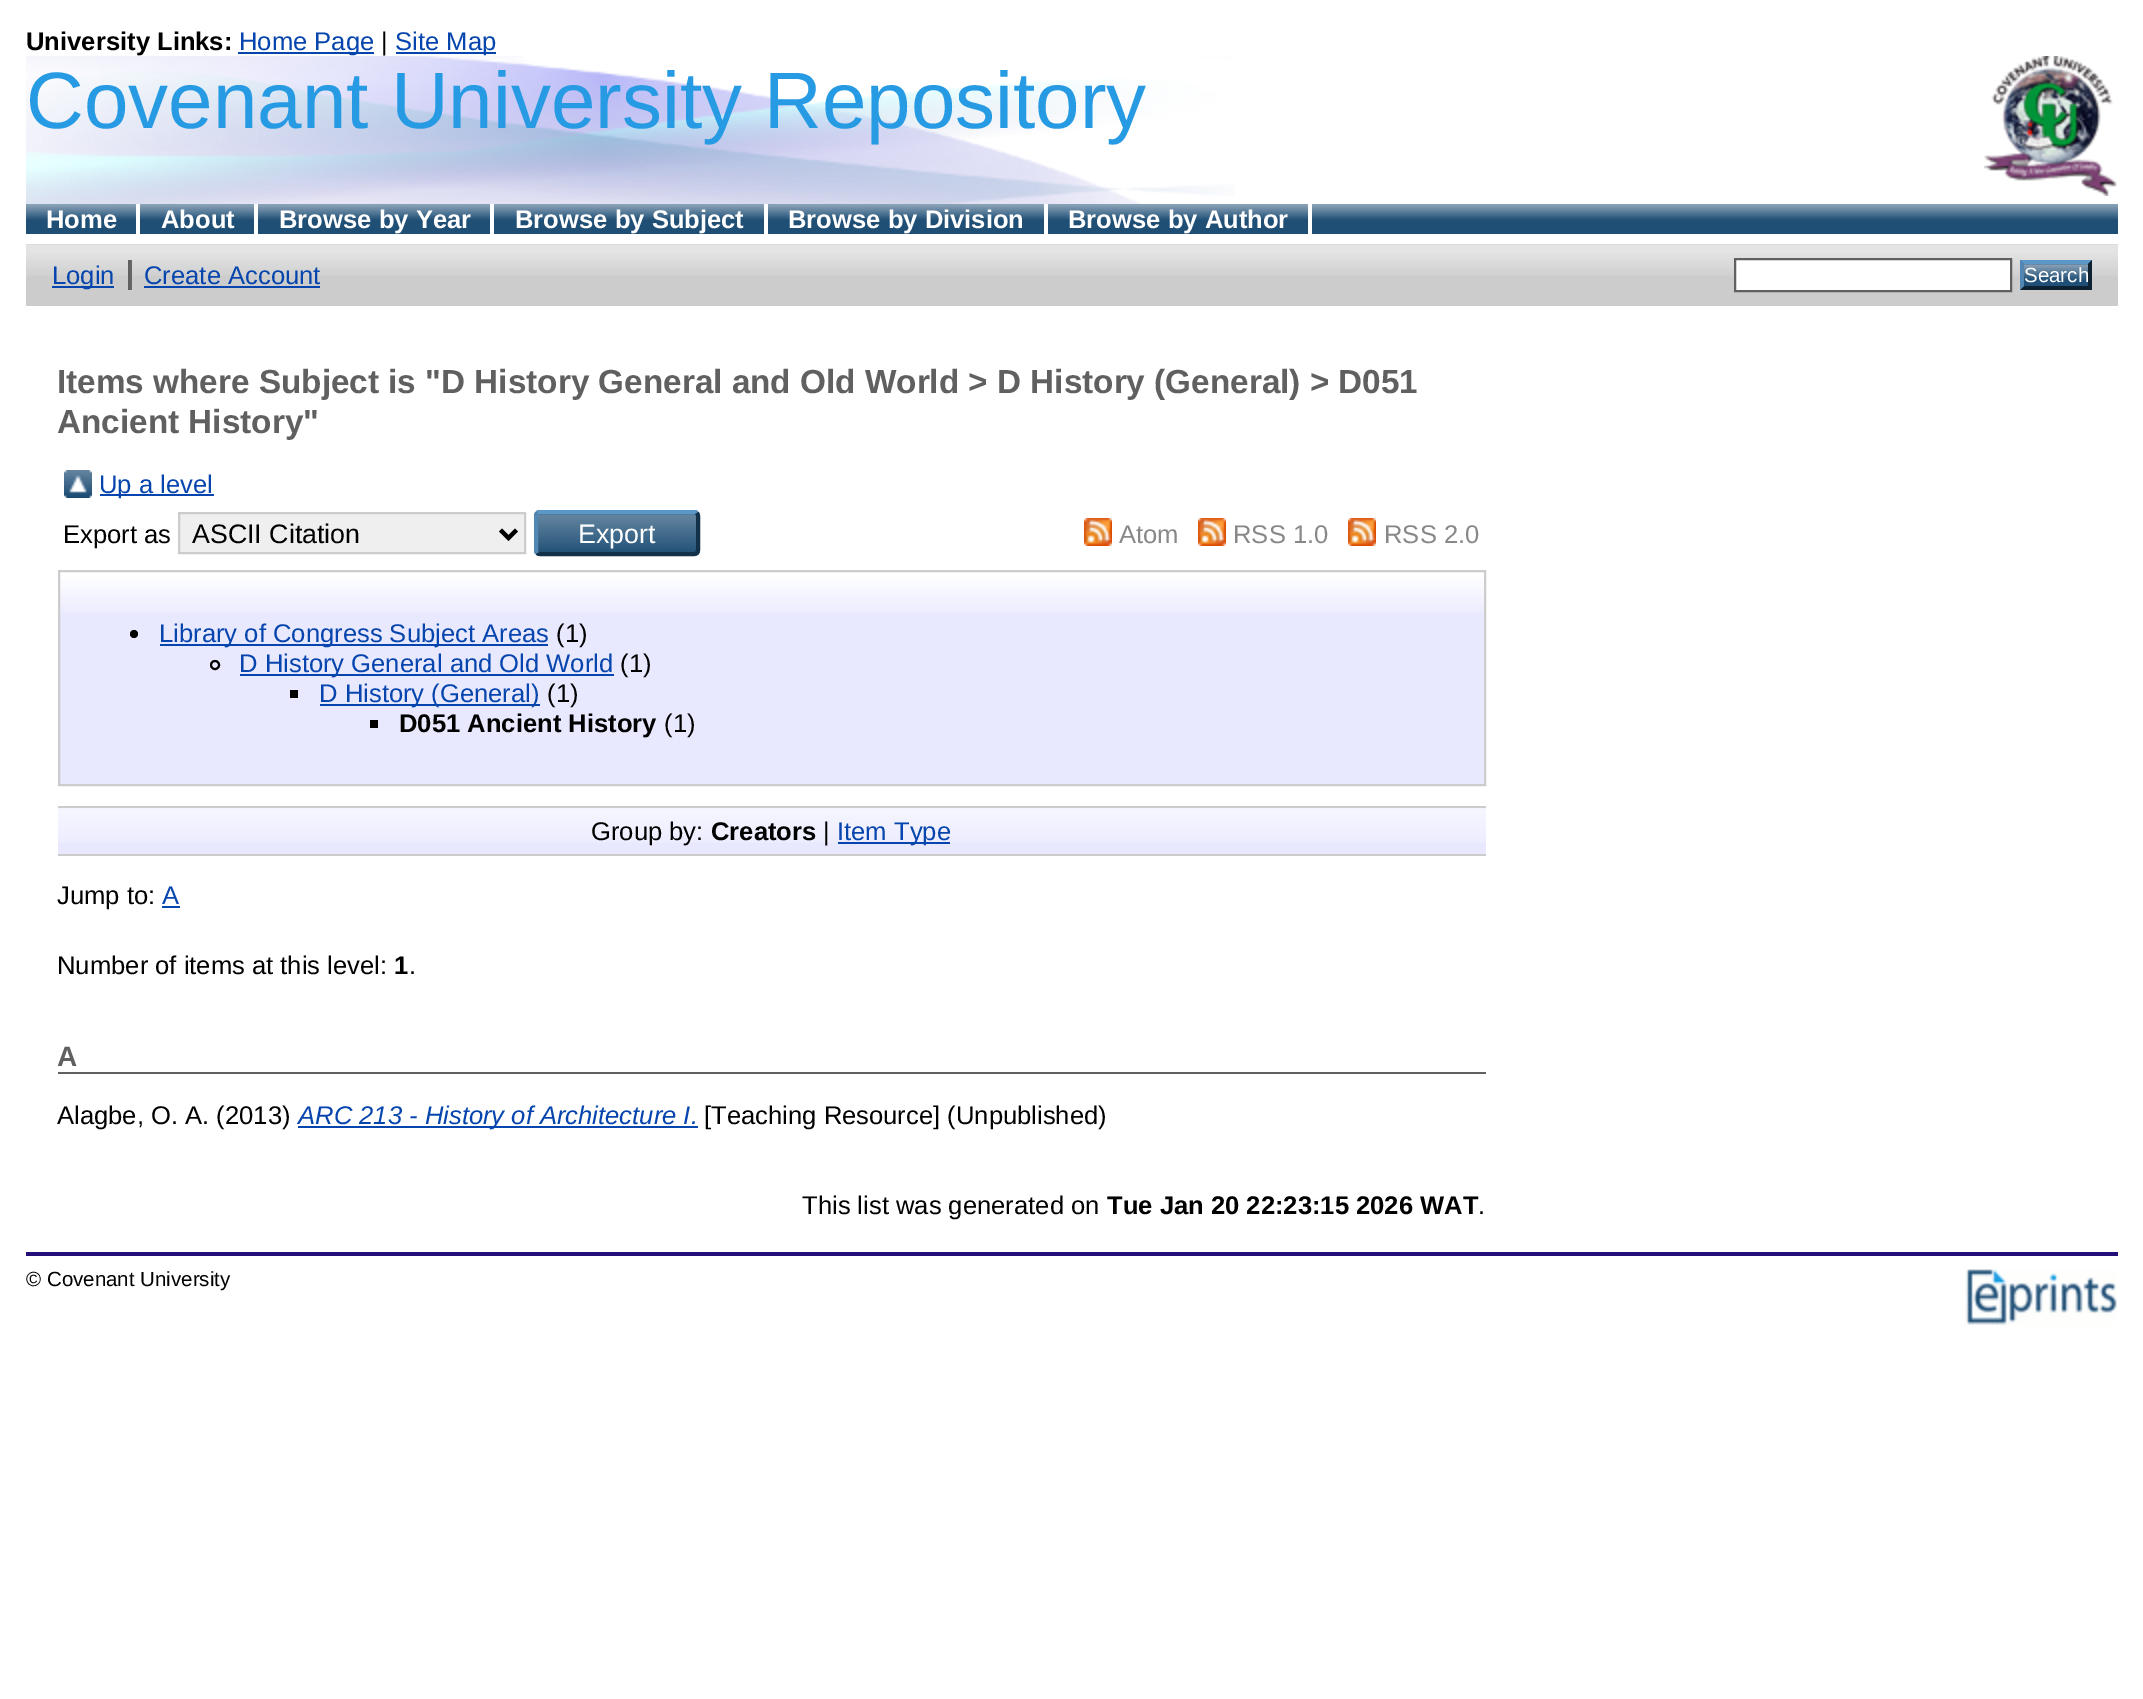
%!PS-Adobe-3.0
%%BoundingBox: 0 0 2143 1699
%%LanguageLevel: 3
%%Pages: 1
%%EndComments
%%BeginProlog
/rrect { 5 dict begin { /r /h /w /y /x } { exch def } forall
  x r add y moveto x w add y 2 copy h add r arct x w add y h add x 1 index r arct
  x y h add x y r arct x y 2 copy exch w add exch r arct closepath end } def
/drawimage { 5 dict begin { /h /w /y /x /name } { exch def } forall
  gsave x y translate w h scale
  w h 8 [w 0 0 h 0 0] name (r) file false 3 colorimage grestore end } def
%%EndProlog
%%BeginSetup
<< /PageSize [2143 1699] >> setpagedevice
%%EndSetup
%%Page: 1 1
0 1699 translate 1 -1 scale
4 setmiterlimit
1 setgray
0 0 2143 1699 rectfill
(images/1.raw) 26 56 1209 148 drawimage
0.024 0.271 0.678 setrgbcolor
238 52 136 2 rectfill
396 52 100 2 rectfill
(images/2.raw) 1984 56 133 140 drawimage
0.125 0.31 0.463 setrgbcolor
26 220 2092 14 rectfill
(images/3.raw) 26 204 2092 16 drawimage
1 setgray
136 204 4 30 rectfill
254 204 4 30 rectfill
490 204 4 30 rectfill
764 204 4 30 rectfill
1044 204 4 30 rectfill
1308 204 4 30 rectfill
0.8 setgray
26 276 2092 30 rectfill
(images/4.raw) 26 244 2092 32 drawimage
0.376 setgray
128 260 2 30 rectfill
0.024 0.271 0.678 setrgbcolor
52 286 62 2 rectfill
0.4 setgray
130 260 2 30 rectfill
0.024 0.271 0.678 setrgbcolor
144 286 176 2 rectfill
1 setgray
newpath 1735 259 moveto 2011 259 lineto 2011 291 lineto 1735 291 lineto closepath gsave fill grestore
0.376 setgray
2 setlinewidth
stroke
0.122 0.31 0.463 setrgbcolor
2020 260 72 30 rectfill
(images/5.raw) 2023 263 66 17 drawimage
0.357 0.592 0.78 setrgbcolor
newpath 2020 260 moveto 2092 260 lineto 2088 264 lineto 2024 264 lineto closepath fill
0.051 0.129 0.192 setrgbcolor
newpath 2092 260 moveto 2092 290 lineto 2088 286 lineto 2088 264 lineto closepath fill
newpath 2092 290 moveto 2020 290 lineto 2024 286 lineto 2088 286 lineto closepath fill
0.322 0.529 0.702 setrgbcolor
newpath 2020 290 moveto 2020 260 lineto 2024 264 lineto 2024 286 lineto closepath fill
(images/6.raw) 64 470 28 28 drawimage
0.024 0.271 0.678 setrgbcolor
100 494 114 2 rectfill
0.937 setgray
newpath 179 513 moveto 525 513 lineto 525 553 lineto 179 553 lineto closepath gsave fill grestore
0.8 setgray
stroke
0 setgray
4 setlinewidth
newpath 500.5 530 moveto 508.5 538 lineto 516.5 530 lineto stroke
0.122 0.31 0.463 setrgbcolor
534 510 166 46 6 rrect fill
(images/7.raw) 534 513 166 39 drawimage
0.357 0.592 0.78 setrgbcolor
newpath 537 513 moveto 538 512.5 539 512 540 512 curveto 694 512 lineto 695 512 696 512.5 697 513 curveto stroke
0.075 0.196 0.29 setrgbcolor
newpath 697 513 moveto 697.5 514 698 515 698 516 curveto 698 550 lineto 698 551 697.5 552 697 553 curveto 696 553.5 695 554 694 554 curveto 540 554 lineto 539 554 538 553.5 537 553 curveto stroke
0.322 0.529 0.702 setrgbcolor
newpath 537 553 moveto 536.5 552 536 551 536 550 curveto 536 516 lineto 536 515 536.5 514 537 513 curveto stroke
(images/8.raw) 1084 518 28 28 drawimage
(images/8.raw) 1198 518 28 28 drawimage
(images/8.raw) 1348 518 28 28 drawimage
0.91 0.91 1 setrgbcolor
60 573 1424 211 rectfill
(images/9.raw) 60 572 1424 41 drawimage
0.8 setgray
2 setlinewidth
59 571 1426 214 rectstroke
0 setgray
newpath 134 634 4 0 360 arc closepath fill
0.024 0.271 0.678 setrgbcolor
160 644 388 2 rectfill
0 setgray
newpath 215 665 4 0 360 arc closepath stroke
0.024 0.271 0.678 setrgbcolor
240 674 374 2 rectfill
0 setgray
290 690 8 8 rectfill
0.024 0.271 0.678 setrgbcolor
320 704 220 2 rectfill
0 setgray
370 720 8 8 rectfill
0.91 0.91 1 setrgbcolor
58 808 1428 46 rectfill
(images/10.raw) 58 808 1428 35 drawimage
0.8 setgray
58 806 1428 2 rectfill
58 854 1428 2 rectfill
0.024 0.271 0.678 setrgbcolor
838 842 112 2 rectfill
162 906 18 2 rectfill
0.376 setgray
58 1072 1428 2 rectfill
0.024 0.271 0.678 setrgbcolor
298 1126 400 2 rectfill
0.141 0.059 0.471 setrgbcolor
26 1252 2092 4 rectfill
(images/11.raw) 1964 1269 153 57 drawimage
/LiberationSans-Bold [25.6 0 0 -25.6 0 0] selectfont
0 setgray
26 50 moveto (University Links:) show
/LiberationSans-Regular [25.6 0 0 -25.6 0 0] selectfont
0.024 0.271 0.678 setrgbcolor
239 50 moveto (Home Page) show
0 setgray
381 50 moveto (|) show
0.024 0.271 0.678 setrgbcolor
395 50 moveto (Site Map) show
/LiberationSans-Regular [80 0 0 -80 0 0] selectfont
0.149 0.604 0.89 setrgbcolor
26 128 moveto (Covenant University Repository) show
/LiberationSans-Bold [25.6 0 0 -25.6 0 0] selectfont
1 setgray
46 228 moveto (Home) show
161 228 moveto (About) show
279 228 moveto (Browse by Year) show
515 228 moveto (Browse by Subject) show
788 228 moveto (Browse by Division) show
1068 228 moveto (Browse by Author) show
/LiberationSans-Regular [25.6 0 0 -25.6 0 0] selectfont
0.024 0.271 0.678 setrgbcolor
52 284 moveto (Login) show
144 284 moveto (Create Account) show
/LiberationSans-Regular [20.5 0 0 -20.5 0 0] selectfont
1 setgray
2024 282 moveto (Search) show
/LiberationSans-Bold [33.3 0 0 -33.3 0 0] selectfont
0.376 setgray
57 393 moveto (Items where Subject is "D History General and Old World > D History \(General\) > D051) show
57 433 moveto (Ancient History") show
/LiberationSans-Regular [25.6 0 0 -25.6 0 0] selectfont
0.024 0.271 0.678 setrgbcolor
99 493 moveto (Up a level) show
0 setgray
63 543 moveto (Export as) show
/LiberationSans-Regular [26.75 0 0 -26.75 0 0] selectfont
192 543 moveto (ASCII Citation) show
1 setgray
578 543 moveto (Export) show
/LiberationSans-Regular [25.6 0 0 -25.6 0 0] selectfont
0.533 setgray
1119 543 moveto (Atom) show
1233 543 moveto (RSS 1.0) show
1384 543 moveto (RSS 2.0) show
0.024 0.271 0.678 setrgbcolor
159 642 moveto (Library of Congress Subject Areas) show
0 setgray
556 642 moveto (\(1\)) show
0.024 0.271 0.678 setrgbcolor
239 672 moveto (D History General and Old World) show
0 setgray
620 672 moveto (\(1\)) show
0.024 0.271 0.678 setrgbcolor
319 702 moveto (D History \(General\)) show
0 setgray
547 702 moveto (\(1\)) show
/LiberationSans-Bold [25.6 0 0 -25.6 0 0] selectfont
399 732 moveto (D051 Ancient History) show
/LiberationSans-Regular [25.6 0 0 -25.6 0 0] selectfont
664 732 moveto (\(1\)) show
591 840 moveto (Group by:) show
/LiberationSans-Bold [25.6 0 0 -25.6 0 0] selectfont
711 840 moveto (Creators) show
/LiberationSans-Regular [25.6 0 0 -25.6 0 0] selectfont
823 840 moveto (|) show
0.024 0.271 0.678 setrgbcolor
837 840 moveto (Item Type) show
0 setgray
57 904 moveto (Jump to:) show
0.024 0.271 0.678 setrgbcolor
162 904 moveto (A) show
0 setgray
57 974 moveto (Number of items at this level:) show
/LiberationSans-Bold [25.6 0 0 -25.6 0 0] selectfont
394 974 moveto (1) show
/LiberationSans-Regular [25.6 0 0 -25.6 0 0] selectfont
409 974 moveto (.) show
/LiberationSans-Bold [28 0 0 -28 0 0] selectfont
0.376 setgray
57 1066 moveto (A) show
/LiberationSans-Regular [25.6 0 0 -25.6 0 0] selectfont
0 setgray
57 1124 moveto (Alagbe, O. A. \(2013\)) show
/LiberationSans-Italic [25.6 0 0 -25.6 0 0] selectfont
0.024 0.271 0.678 setrgbcolor
298 1124 moveto (ARC 213 - History of Architecture I.) show
/LiberationSans-Regular [25.6 0 0 -25.6 0 0] selectfont
0 setgray
704 1124 moveto ([Teaching Resource] \(Unpublished\)) show
802 1214 moveto (This list was generated on) show
/LiberationSans-Bold [25.6 0 0 -25.6 0 0] selectfont
1107 1214 moveto (Tue Jan 20 22:23:15 2026 WAT) show
/LiberationSans-Regular [25.6 0 0 -25.6 0 0] selectfont
1478 1214 moveto (.) show
/LiberationSans-Regular [20.5 0 0 -20.5 0 0] selectfont
26 1286 moveto (© Covenant University) show
showpage
%%EOF
